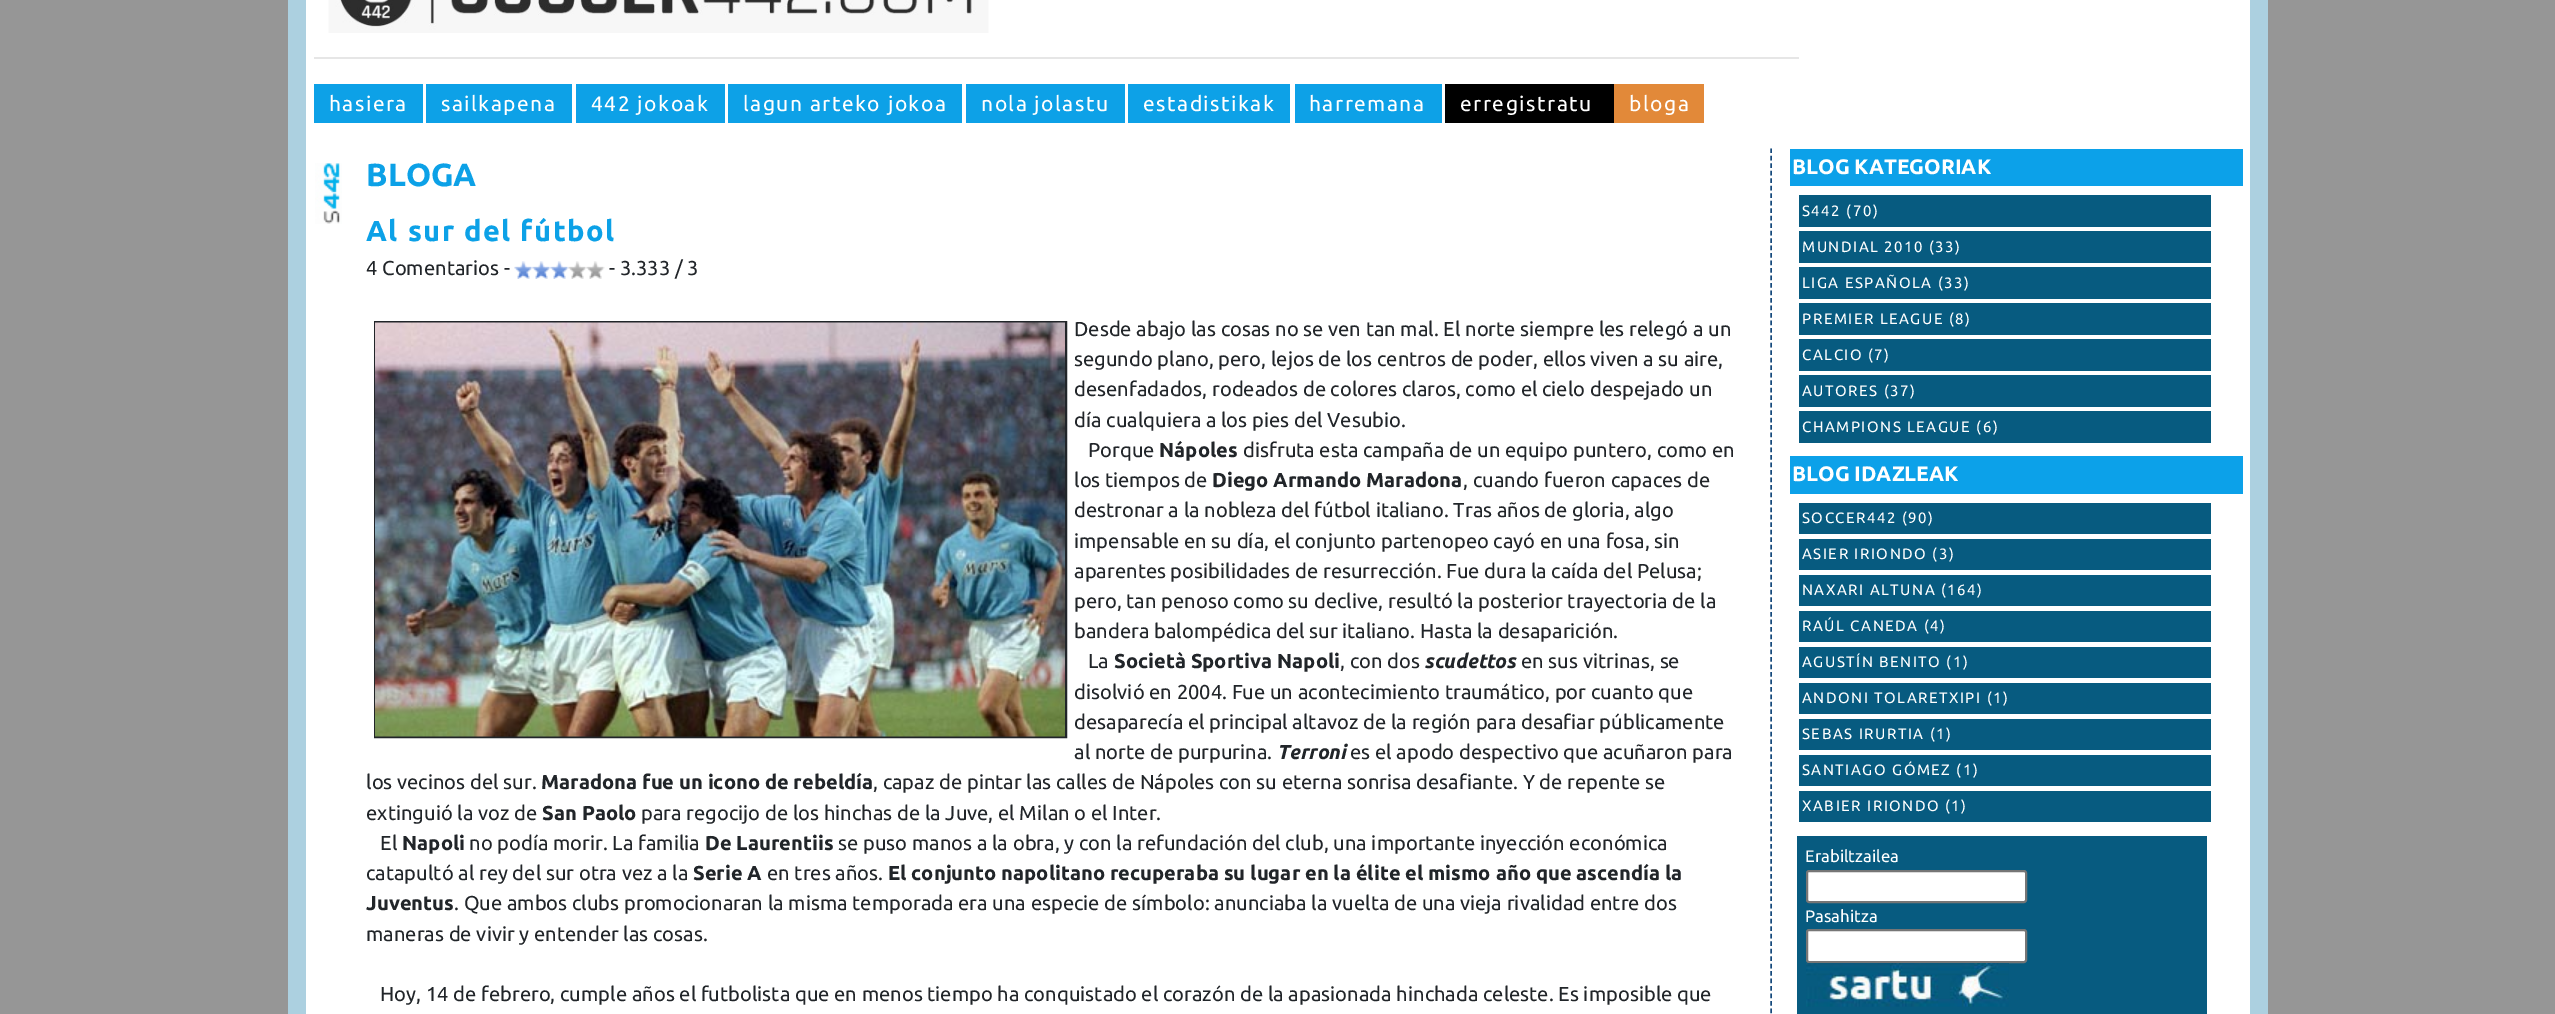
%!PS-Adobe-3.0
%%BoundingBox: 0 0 2555 1014
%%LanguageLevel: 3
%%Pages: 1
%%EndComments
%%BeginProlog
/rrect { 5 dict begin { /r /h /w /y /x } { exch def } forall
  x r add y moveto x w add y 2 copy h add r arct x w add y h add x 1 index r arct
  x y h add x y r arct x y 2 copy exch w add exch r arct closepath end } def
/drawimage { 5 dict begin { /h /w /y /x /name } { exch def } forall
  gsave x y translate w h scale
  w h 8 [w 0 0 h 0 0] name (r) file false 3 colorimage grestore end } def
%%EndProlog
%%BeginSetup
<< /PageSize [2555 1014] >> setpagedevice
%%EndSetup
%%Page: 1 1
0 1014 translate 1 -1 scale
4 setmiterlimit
0.588 setgray
0 0 2555 1014 rectfill
0.675 0.816 0.878 setrgbcolor
288 0 1980 1014 rectfill
1 setgray
306 0 1944 1014 rectfill
(images/1.raw) 328 0 661 33 drawimage
0.902 setgray
314 57 1485 2 rectfill
0.051 0.631 0.906 setrgbcolor
314 84 109 39 rectfill
426 84 146 39 rectfill
576 84 149 39 rectfill
728 84 234 39 rectfill
966 84 159 39 rectfill
1128 84 162 39 rectfill
1295 84 147 39 rectfill
0 setgray
1445 84 169 39 rectfill
0.886 0.537 0.224 setrgbcolor
1614 84 90 39 rectfill
(images/2.raw) 315 163 27 61 drawimage
(images/3.raw) 514 261 19 18 drawimage
(images/4.raw) 532 261 19 18 drawimage
(images/4.raw) 550 261 19 18 drawimage
(images/5.raw) 568 261 19 18 drawimage
(images/6.raw) 586 261 19 18 drawimage
0.129 0.145 0.161 setrgbcolor
2 setlinewidth
375 322 691 415 rectstroke
(images/7.raw) 375 322 690 415 drawimage
0.082 0.286 0.486 setrgbcolor
1.5 setlinewidth
[4.5 2.98] 0 setdash
newpath 1771 148.5 moveto 1771 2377.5 lineto stroke
0.047 0.631 0.914 setrgbcolor
1790 149 453 37 rectfill
0.027 0.357 0.502 setrgbcolor
1799 195 412 32 rectfill
1799 231 412 32 rectfill
1799 267 412 32 rectfill
1799 303 412 32 rectfill
1799 339 412 32 rectfill
1799 375 412 32 rectfill
1799 411 412 32 rectfill
0.047 0.631 0.914 setrgbcolor
1790 456 453 38 rectfill
0.027 0.357 0.502 setrgbcolor
1799 503 412 31 rectfill
1799 539 412 31 rectfill
1799 575 412 31 rectfill
1799 611 412 31 rectfill
1799 647 412 31 rectfill
1799 683 412 31 rectfill
1799 719 412 31 rectfill
1799 755 412 31 rectfill
1799 791 412 31 rectfill
1797 836 410 178 rectfill
1 setgray
1807 871 219 31 2 rrect gsave fill grestore
0.463 setgray
2 setlinewidth
[] 0 setdash
stroke
1 setgray
1807 930 219 32 2 rrect gsave fill grestore
0.463 setgray
stroke
(images/8.raw) 1806 963 203 44 drawimage
/Ubuntu-Regular [21 0 0 -21 0 0] selectfont
1 setgray
329 111 moveto 1.5 0 (hasiera) ashow
441 111 moveto 1.5 0 (sailkapena) ashow
591 111 moveto 1.5 0 (442 jokoak) ashow
743 111 moveto 1.5 0 (lagun arteko jokoa) ashow
981 111 moveto 1.5 0 (nola jolastu) ashow
1143 111 moveto 1.5 0 (estadistikak) ashow
1309 111 moveto 1.5 0 (harremana) ashow
1460 111 moveto 1.5 0 (erregistratu) ashow
1629 111 moveto 1.5 0 (bloga) ashow
/Ubuntu-Bold [32 0 0 -32 0 0] selectfont
0.047 0.631 0.906 setrgbcolor
366 186 moveto (BLOGA) show
/Ubuntu-Bold [29 0 0 -29 0 0] selectfont
366 241 moveto 1.5 0 (Al sur del fútbol) ashow
/Ubuntu-Regular [20.15 0 0 -20.15 0 0] selectfont
0.129 0.145 0.161 setrgbcolor
366 275 moveto (4 Comentarios -) show
609 275 moveto (- 3.333 / 3) show
1074 336 moveto (Desde abajo las cosas no se ven tan mal. El norte siempre les relegó a un) show
1074 366 moveto (segundo plano, pero, lejos de los centros de poder, ellos viven a su aire,) show
1074 396 moveto (desenfadados, rodeados de colores claros, como el cielo despejado un) show
1074 427 moveto (día cualquiera a los pies del Vesubio.) show
1088 457 moveto (Porque) show
/Ubuntu-Bold [20.15 0 0 -20.15 0 0] selectfont
1159 457 moveto (Nápoles) show
/Ubuntu-Regular [20.15 0 0 -20.15 0 0] selectfont
1243 457 moveto (disfruta esta campaña de un equipo puntero, como en) show
1074 487 moveto (los tiempos de) show
/Ubuntu-Bold [20.15 0 0 -20.15 0 0] selectfont
1212 487 moveto (Diego Armando Maradona) show
/Ubuntu-Regular [20.15 0 0 -20.15 0 0] selectfont
1463 487 moveto (, cuando fueron capaces de) show
1074 517 moveto (destronar a la nobleza del fútbol italiano. Tras años de gloria, algo) show
1074 548 moveto (impensable en su día, el conjunto partenopeo cayó en una fosa, sin) show
1074 578 moveto (aparentes posibilidades de resurrección. Fue dura la caída del Pelusa;) show
1074 608 moveto (pero, tan penoso como su declive, resultó la posterior trayectoria de la) show
1074 638 moveto (bandera balompédica del sur italiano. Hasta la desaparición.) show
1088 668 moveto (La) show
/Ubuntu-Bold [20.15 0 0 -20.15 0 0] selectfont
1114 668 moveto (Società Sportiva Napoli) show
/Ubuntu-Regular [20.15 0 0 -20.15 0 0] selectfont
1340 668 moveto (, con dos) show
/Ubuntu-BoldItalic [20.15 0 0 -20.15 0 0] selectfont
1424 668 moveto (scudettos) show
/Ubuntu-Regular [20.15 0 0 -20.15 0 0] selectfont
1521 668 moveto (en sus vitrinas, se) show
1074 699 moveto (disolvió en 2004. Fue un acontecimiento traumático, por cuanto que) show
1074 729 moveto (desaparecía el principal altavoz de la región para desafiar públicamente) show
1074 759 moveto (al norte de purpurina.) show
/Ubuntu-BoldItalic [20.15 0 0 -20.15 0 0] selectfont
1277 759 moveto (Terroni) show
/Ubuntu-Regular [20.15 0 0 -20.15 0 0] selectfont
1350 759 moveto (es el apodo despectivo que acuñaron para) show
366 789 moveto (los vecinos del sur.) show
/Ubuntu-Bold [20.15 0 0 -20.15 0 0] selectfont
541 789 moveto (Maradona fue un icono de rebeldía) show
/Ubuntu-Regular [20.15 0 0 -20.15 0 0] selectfont
873 789 moveto (, capaz de pintar las calles de Nápoles con su eterna sonrisa desafiante. Y de repente se) show
366 820 moveto (extinguió la voz de) show
/Ubuntu-Bold [20.15 0 0 -20.15 0 0] selectfont
542 820 moveto (San Paolo) show
/Ubuntu-Regular [20.15 0 0 -20.15 0 0] selectfont
641 820 moveto (para regocijo de los hinchas de la Juve, el Milan o el Inter.) show
380 850 moveto (El) show
/Ubuntu-Bold [20.15 0 0 -20.15 0 0] selectfont
402 850 moveto (Napoli) show
/Ubuntu-Regular [20.15 0 0 -20.15 0 0] selectfont
469 850 moveto (no podía morir. La familia) show
/Ubuntu-Bold [20.15 0 0 -20.15 0 0] selectfont
705 850 moveto (De Laurentiis) show
/Ubuntu-Regular [20.15 0 0 -20.15 0 0] selectfont
838 850 moveto (se puso manos a la obra, y con la refundación del club, una importante inyección económica) show
366 880 moveto (catapultó al rey del sur otra vez a la) show
/Ubuntu-Bold [20.15 0 0 -20.15 0 0] selectfont
693 880 moveto (Serie A) show
/Ubuntu-Regular [20.15 0 0 -20.15 0 0] selectfont
767 880 moveto (en tres años.) show
/Ubuntu-Bold [20.15 0 0 -20.15 0 0] selectfont
888 880 moveto (El conjunto napolitano recuperaba su lugar en la élite el mismo año que ascendía la) show
366 910 moveto (Juventus) show
/Ubuntu-Regular [20.15 0 0 -20.15 0 0] selectfont
454 910 moveto (. Que ambos clubs promocionaran la misma temporada era una especie de símbolo: anunciaba la vuelta de una vieja rivalidad entre dos) show
366 941 moveto (maneras de vivir y entender las cosas.) show
380 1001 moveto (Hoy, 14 de febrero, cumple años el futbolista que en menos tiempo ha conquistado el corazón de la apasionada hinchada celeste. Es imposible que) show
/Ubuntu-Bold [21 0 0 -21 0 0] selectfont
1 setgray
1792 174 moveto (BLOG KATEGORIAK) show
/Ubuntu-Regular [15 0 0 -15 0 0] selectfont
1802 216 moveto 1.5 0 (S442 \(70\)) ashow
1802 252 moveto 1.5 0 (MUNDIAL 2010 \(33\)) ashow
1802 288 moveto 1.5 0 (LIGA ESPAÑOLA \(33\)) ashow
1802 324 moveto 1.5 0 (PREMIER LEAGUE \(8\)) ashow
1802 360 moveto 1.5 0 (CALCIO \(7\)) ashow
1802 396 moveto 1.5 0 (AUTORES \(37\)) ashow
1802 432 moveto 1.5 0 (CHAMPIONS LEAGUE \(6\)) ashow
/Ubuntu-Bold [21 0 0 -21 0 0] selectfont
1792 481 moveto (BLOG IDAZLEAK) show
/Ubuntu-Regular [15 0 0 -15 0 0] selectfont
1802 523 moveto 1.5 0 (SOCCER442 \(90\)) ashow
1802 559 moveto 1.5 0 (ASIER IRIONDO \(3\)) ashow
1802 595 moveto 1.5 0 (NAXARI ALTUNA \(164\)) ashow
1802 631 moveto 1.5 0 (RAÚL CANEDA \(4\)) ashow
1802 667 moveto 1.5 0 (AGUSTÍN BENITO \(1\)) ashow
1802 703 moveto 1.5 0 (ANDONI TOLARETXIPI \(1\)) ashow
1802 739 moveto 1.5 0 (SEBAS IRURTIA \(1\)) ashow
1802 775 moveto 1.5 0 (SANTIAGO GÓMEZ \(1\)) ashow
1802 811 moveto 1.5 0 (XABIER IRIONDO \(1\)) ashow
/Ubuntu-Regular [16.75 0 0 -16.75 0 0] selectfont
1805 862 moveto (Erabiltzailea) show
1805 922 moveto (Pasahitza) show
showpage
%%EOF
